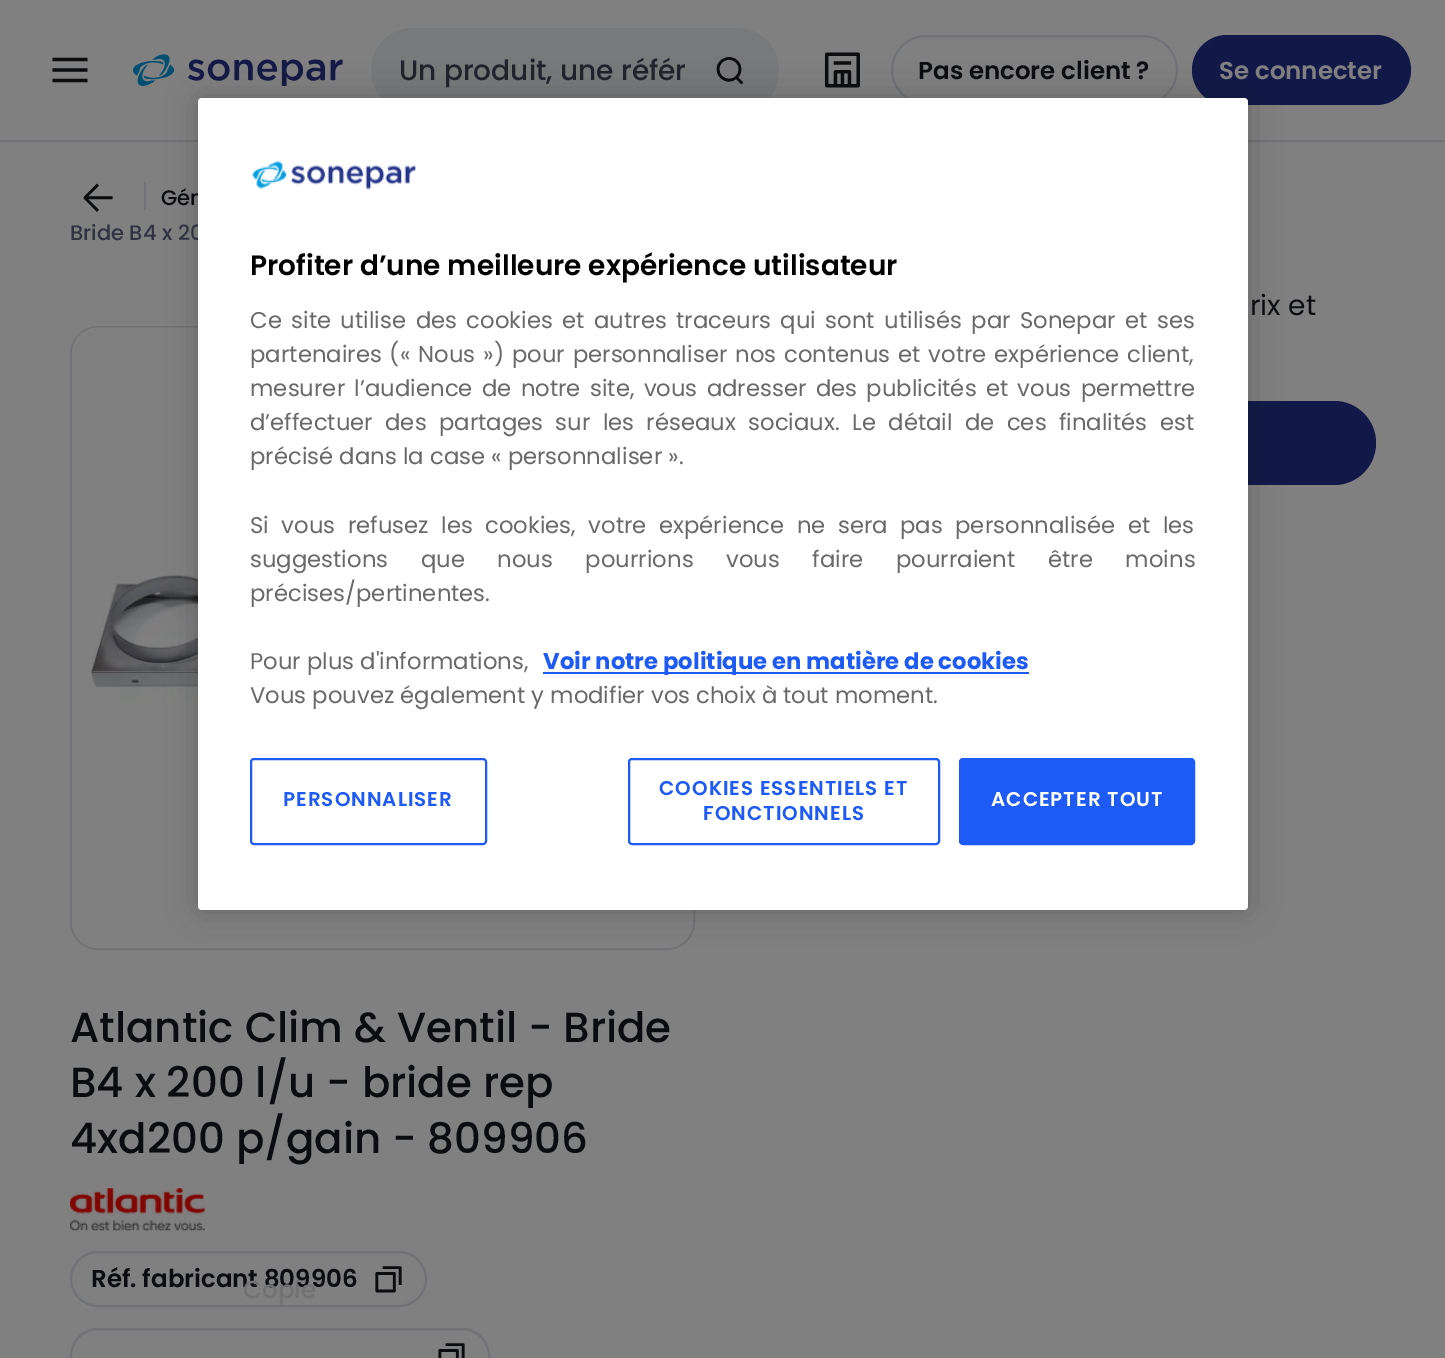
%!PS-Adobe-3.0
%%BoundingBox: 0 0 1445 1358
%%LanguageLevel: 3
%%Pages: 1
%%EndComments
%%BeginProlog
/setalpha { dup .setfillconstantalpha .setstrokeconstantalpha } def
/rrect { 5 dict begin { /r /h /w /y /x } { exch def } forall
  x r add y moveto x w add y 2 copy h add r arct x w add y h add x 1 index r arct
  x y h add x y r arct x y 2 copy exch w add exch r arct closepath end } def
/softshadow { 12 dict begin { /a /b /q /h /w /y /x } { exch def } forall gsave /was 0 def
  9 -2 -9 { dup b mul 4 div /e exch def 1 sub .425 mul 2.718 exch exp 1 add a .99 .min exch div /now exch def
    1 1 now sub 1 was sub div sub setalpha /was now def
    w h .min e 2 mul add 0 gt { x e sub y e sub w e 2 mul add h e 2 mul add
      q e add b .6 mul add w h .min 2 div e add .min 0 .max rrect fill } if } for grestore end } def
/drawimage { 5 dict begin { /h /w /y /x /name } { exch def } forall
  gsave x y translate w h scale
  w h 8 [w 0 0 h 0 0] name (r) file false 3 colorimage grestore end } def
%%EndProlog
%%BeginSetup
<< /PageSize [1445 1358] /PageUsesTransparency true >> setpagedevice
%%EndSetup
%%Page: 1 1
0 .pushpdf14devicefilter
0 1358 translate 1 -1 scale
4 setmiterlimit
0.502 setgray
0 0 1445 1358 rectfill
0.443 0.447 0.459 setrgbcolor
0 140 1445 2 rectfill
(images/1.raw) 52 57 36 26 drawimage
(images/2.raw) 133 54 210 32 drawimage
0.471 0.475 0.478 setrgbcolor
371 28 408 84 42 rrect fill
(images/3.raw) 716 57 28 28 drawimage
(images/4.raw) 824 52 36 36 drawimage
0.443 0.447 0.459 setrgbcolor
2 setlinewidth
892 36 285 68 34 rrect stroke
0.071 0.098 0.282 setrgbcolor
1192 35 219 70 35 rrect fill
(images/5.raw) 83 183 30 29 drawimage
0.443 0.447 0.459 setrgbcolor
144 182 2 28 rectfill
0.071 0.098 0.282 setrgbcolor
751 401 625 84 42 rrect fill
0.443 0.447 0.459 setrgbcolor
71 327 623 622 27 rrect stroke
(images/6.raw) 72 327 621 622 drawimage
(images/7.raw) 70 1188 135 43 drawimage
71 1252 355 54 27 rrect stroke
(images/8.raw) 375 1266 27 27 drawimage
71 1329 418 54 27 rrect stroke
(images/9.raw) 438 1343 27 15 drawimage
0 setgray
198 98 1050 812 4 16 0.2 softshadow
/Poppins-Medium [28 0 0 -28 0 0] selectfont
0.129 0.133 0.173 setrgbcolor
399 80 moveto (Un produit, une référ) show
/Poppins-SemiBold [24.5 0 0 -24.5 0 0] selectfont
0.043 0.047 0.059 setrgbcolor
918 79 moveto (Pas encore client ?) show
0.502 setgray
1219 79 moveto (Se connecter) show
/Poppins-Medium [21 0 0 -21 0 0] selectfont
0.043 0.047 0.059 setrgbcolor
161 205 moveto (Gén) show
0.192 0.2 0.259 setrgbcolor
70 240 moveto (Bride B4 x 20) show
/Poppins-Regular [28 0 0 -28 0 0] selectfont
0.043 0.047 0.059 setrgbcolor
1250 315 moveto (rix et) show
/Poppins-Medium [42 0 0 -42 0 0] selectfont
70 1042 moveto (Atlantic Clim & Ventil - Bride) show
70 1097 moveto (B4 x 200 l/u - bride rep) show
70 1153 moveto (4xd200 p/gain - 809906) show
/Poppins-SemiBold [24.5 0 0 -24.5 0 0] selectfont
91 1287 moveto (Réf. fabricant 809906) show
/Poppins-Medium [24.5 0 0 -24.5 0 0] selectfont
0.447 setgray
243 1298 moveto (Copie) show
1 setgray
198 98 1050 812 4 rrect fill
(images/10.raw) 252 160 164 30 drawimage
/Poppins-SemiBold [28 0 0 -28 0 0] selectfont
0 setgray
250 275 moveto (Profiter d’une meilleure expérience utilisateur) show
/Poppins-Regular [22.75 0 0 -22.75 0 0] selectfont
0.412 setgray
250 328 moveto 3.4 0 32 (Ce site utilise des cookies et autres traceurs qui sont utilisés par Sonepar et ses) widthshow
250 362 moveto 1.8 0 32 (partenaires \(« Nous »\) pour personnaliser nos contenus et votre expérience client,) widthshow
250 396 moveto 3.25 0 32 (mesurer l’audience de notre site, vous adresser des publicités et vous permettre) widthshow
250 430 moveto 6.25 0 32 (d’effectuer des partages sur les réseaux sociaux. Le détail de ces finalités est) widthshow
250 464 moveto (précisé dans la case « personnaliser ».) show
250 533 moveto 6.4 0 32 (Si vous refusez les cookies, votre expérience ne sera pas personnalisée et les) widthshow
250 567 moveto 26.5 0 32 (suggestions que nous pourrions vous faire pourraient être moins) widthshow
250 601 moveto (précises/pertinentes.) show
250 669 moveto (Pour plus d'informations,) show
0.118 0.357 0.965 setrgbcolor
543 672 486 2 rectfill
/Poppins-Bold [22.75 0 0 -22.75 0 0] selectfont
543 669 moveto (Voir notre politique en matière de cookies) show
/Poppins-Regular [22.75 0 0 -22.75 0 0] selectfont
0.412 setgray
250 703 moveto (Vous pouvez également y modifier vos choix à tout moment.) show
0.118 0.357 0.965 setrgbcolor
251 759 235 85 3 rrect stroke
/Poppins-SemiBold [19.9 0 0 -19.9 0 0] selectfont
283 806 moveto 1 0 (PERSONNALISER) ashow
629 759 310 85 3 rrect stroke
659 795 moveto 1 0 (COOKIES ESSENTIELS ET) ashow
703 820 moveto 1 0 (FONCTIONNELS) ashow
960 759 234 85 3 rrect gsave fill grestore
stroke
1 setgray
991 806 moveto 1 0 (ACCEPTER TOUT) ashow
.poppdf14devicefilter showpage
%%EOF
